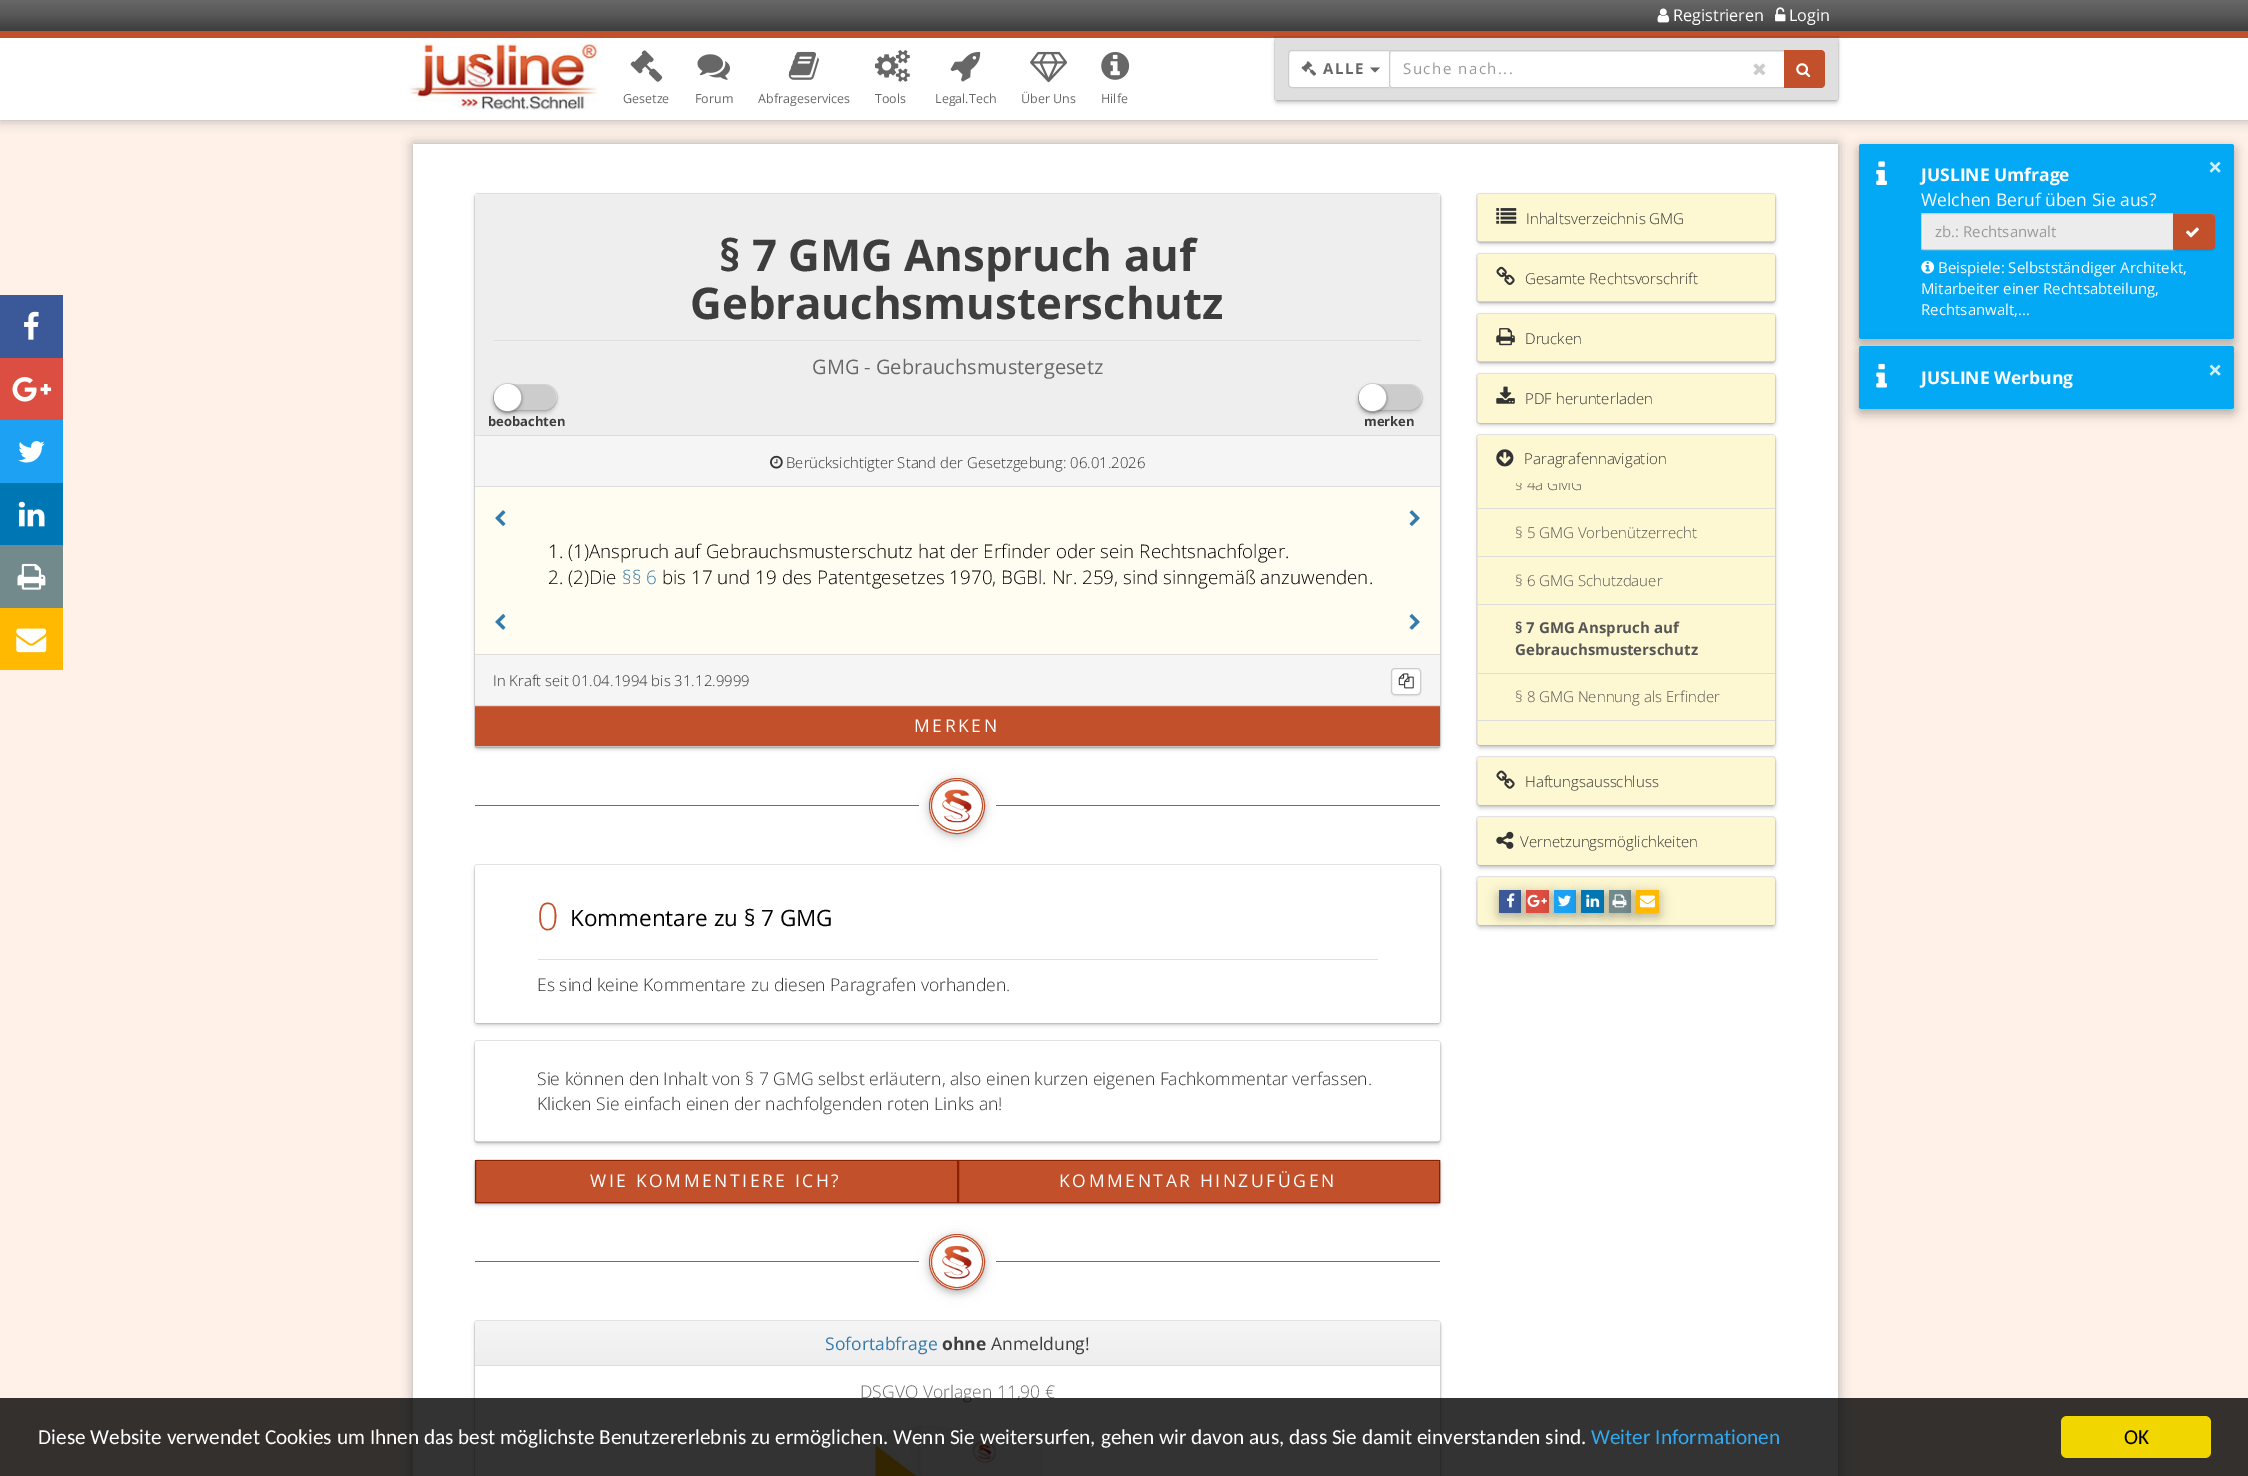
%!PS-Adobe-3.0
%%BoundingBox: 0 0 2248 1476
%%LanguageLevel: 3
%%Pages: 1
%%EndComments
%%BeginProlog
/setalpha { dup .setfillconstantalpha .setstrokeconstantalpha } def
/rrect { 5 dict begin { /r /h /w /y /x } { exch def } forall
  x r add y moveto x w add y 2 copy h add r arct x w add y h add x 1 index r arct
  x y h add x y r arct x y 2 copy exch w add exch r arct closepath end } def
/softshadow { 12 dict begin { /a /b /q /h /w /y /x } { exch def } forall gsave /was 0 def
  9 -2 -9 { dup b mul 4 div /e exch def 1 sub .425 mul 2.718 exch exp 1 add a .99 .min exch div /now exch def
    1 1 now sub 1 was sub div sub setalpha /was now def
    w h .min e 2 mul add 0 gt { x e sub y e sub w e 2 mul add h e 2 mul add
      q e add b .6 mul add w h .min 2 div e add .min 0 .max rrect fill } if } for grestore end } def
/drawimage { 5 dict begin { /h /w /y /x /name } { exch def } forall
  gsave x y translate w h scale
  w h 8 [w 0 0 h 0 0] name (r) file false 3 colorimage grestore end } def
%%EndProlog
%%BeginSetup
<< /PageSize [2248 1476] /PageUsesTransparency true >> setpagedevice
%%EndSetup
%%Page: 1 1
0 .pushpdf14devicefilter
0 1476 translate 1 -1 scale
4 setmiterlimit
1 0.945 0.906 setrgbcolor
0 0 2248 1476 rectfill
0.667 setgray
0 31 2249 89 0 6 1 softshadow
gsave newpath 0 0 moveto 2248 0 lineto 2248 31 lineto 0 31 lineto closepath clip newpath
<< /ShadingType 2 /ColorSpace /DeviceRGB /Coords [1124 0 1124 31] /Extend [true true] /Function << /FunctionType 3 /Domain [0 1] /Functions [<< /FunctionType 2 /Domain [0 1] /C0 [0.404 0.404 0.404] /C1 [0.345 0.345 0.345] /N 1 >> << /FunctionType 2 /Domain [0 1] /C0 [0.345 0.345 0.345] /C1 [0.239 0.239 0.239] /N 1 >>] /Bounds [0.48] /Encode [0 1 0 1] >> >> shfill grestore
(images/1.raw) 1657 8 13 15 drawimage
(images/2.raw) 1775 7 11 15 drawimage
1 setgray
0 38 2248 82 rectfill
0.761 0.318 0.169 setrgbcolor
0 31 2248 7 rectfill
(images/3.raw) 408 43 190 67 drawimage
0 setgray
1275 40 563 63 2.5 2 0.2 softshadow
0.1 setalpha
newpath 1274.5 36.5 moveto 1838.5 36.5 lineto 1838.5 97 lineto 1838.5 99 1837 100.5 1835 100.5 curveto 1278 100.5 lineto 1276 100.5 1274.5 99 1274.5 97 curveto closepath stroke
1 setalpha
0.875 setgray
newpath 1275 38 moveto 1838 38 lineto 1838 97.5 lineto 1838 99 1837 100 1835.5 100 curveto 1277.5 100 lineto 1276 100 1275 99 1275 97.5 curveto closepath fill
1 setgray
newpath 1292 50.5 moveto 1389.5 50.5 lineto 1389.5 87.5 lineto 1292 87.5 lineto 1290 87.5 1288.5 86 1288.5 84 curveto 1288.5 54 lineto 1288.5 52 1290 50.5 1292 50.5 curveto closepath gsave fill grestore
0.8 setgray
stroke
(images/4.raw) 1301 61 16 15 drawimage
0.404 setgray
newpath 1370 67.5 moveto 1380 67.5 lineto 1375 72.5 lineto closepath fill
1 setgray
newpath 1391.5 50 moveto 1785 50 lineto 1785 88 lineto 1391.5 88 lineto 1390 88 1389 87 1389 85.5 curveto 1389 52.5 lineto 1389 51 1390 50 1391.5 50 curveto closepath fill
0.925 setgray
newpath 1391 52 moveto 1784 52 lineto 1784 51 lineto 1390 51 lineto 1390 54 lineto closepath fill
0.8 setgray
newpath 1391.5 50.5 moveto 1784.5 50.5 lineto 1784.5 87.5 lineto 1391.5 87.5 lineto 1390.5 87.5 1389.5 86.5 1389.5 85.5 curveto 1389.5 52.5 lineto 1389.5 51.5 1390.5 50.5 1391.5 50.5 curveto closepath stroke
(images/5.raw) 1753 63 12 12 drawimage
0.761 0.318 0.169 setrgbcolor
newpath 1784 50 moveto 1821 50 lineto 1823 50 1825 52 1825 54 curveto 1825 84 lineto 1825 86 1823 88 1821 88 curveto 1784 88 lineto closepath fill
(images/6.raw) 1796 63 15 15 drawimage
(images/7.raw) 630 50 33 32 drawimage
(images/8.raw) 697 54 33 26 drawimage
(images/9.raw) 788 51 31 29 drawimage
(images/10.raw) 875 50 35 32 drawimage
(images/11.raw) 950 52 31 30 drawimage
(images/12.raw) 1030 51 38 32 drawimage
(images/13.raw) 1101 52 29 28 drawimage
0.231 0.349 0.596 setrgbcolor
0 295 63 63 rectfill
(images/14.raw) 24 311 15 29 drawimage
0.863 0.306 0.255 setrgbcolor
0 358 63 62 rectfill
(images/15.raw) 12 377 40 25 drawimage
0.114 0.631 0.949 setrgbcolor
0 420 63 63 rectfill
(images/16.raw) 18 441 27 22 drawimage
0 0.467 0.71 setrgbcolor
0 483 63 62 rectfill
(images/17.raw) 18 501 27 26 drawimage
0.451 0.541 0.553 setrgbcolor
0 545 63 63 rectfill
(images/18.raw) 17 563 29 27 drawimage
1 0.725 0.004 setrgbcolor
0 608 63 62 rectfill
(images/19.raw) 16 628 31 25 drawimage
0.667 setgray
413 144 1425 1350 0 6 1 softshadow
1 setgray
413 144 1425 1332 rectfill
0 setgray
475 196 965 553 2.5 2 0.2 softshadow
0.1 setalpha
474.5 193.5 966 554 3.5 rrect stroke
1 setalpha
1 0.992 0.945 setrgbcolor
475 194 965 552 2.5 rrect fill
0.933 setgray
newpath 479 194 moveto 1436 194 lineto 1438 194 1440 196 1440 198 curveto 1440 436 lineto 475 436 lineto 475 198 lineto 475 196 477 194 479 194 curveto closepath fill
0.867 setgray
475 435 965 1 rectfill
0.875 setgray
494 340 927 1 rectfill
0 setgray
494 388 62 25 12.5 2 0.2 softshadow
0.1 setalpha
493.5 384.5 64 26 13 rrect stroke
1 setalpha
0.8 setgray
494 385 62 25 12.5 rrect fill
0 setgray
494 386 27 28 13.5 2 0.2 softshadow
0.1 setalpha
newpath 508 398 14.5 0 360 arc closepath stroke
1 setalpha
1 setgray
newpath 507.5 397.5 13.5 0 360 arc closepath fill
0 setgray
1359 388 62 25 12.5 2 0.2 softshadow
0.1 setalpha
1358.5 384.5 64 26 13 rrect stroke
1 setalpha
0.8 setgray
1359 385 62 25 12.5 rrect fill
0 setgray
1359 386 27 28 13.5 2 0.2 softshadow
0.1 setalpha
newpath 1373 398 14.5 0 360 arc closepath stroke
1 setalpha
1 setgray
newpath 1372.5 397.5 13.5 0 360 arc closepath fill
0.961 setgray
475 436 965 50 rectfill
0.867 setgray
475 486 965 1 rectfill
(images/20.raw) 770 455 13 14 drawimage
(images/21.raw) 495 510 11 16 drawimage
(images/22.raw) 1409 510 11 16 drawimage
(images/23.raw) 495 614 11 16 drawimage
(images/24.raw) 1409 614 11 16 drawimage
0.961 setgray
475 655 965 50 rectfill
0.867 setgray
475 654 965 1 rectfill
0 setgray
475 708 965 40 0 0.5 0.07 softshadow
0.867 setgray
475 705 965 1 rectfill
0 setgray
1391 669 30 27 4 0.5 0.07 softshadow
1 setgray
1391.5 668.5 29 26 3.5 rrect gsave fill grestore
0.8 setgray
stroke
(images/25.raw) 1398 673 16 16 drawimage
0.761 0.318 0.169 setrgbcolor
475 707 965 39 rectfill
0.796 0.42 0.294 setrgbcolor
475 706 965 1 rectfill
0.761 0.318 0.169 setrgbcolor
475 805 444 1 rectfill
996 805 444 1 rectfill
0 setgray
929 780 56 56 28 6 0.12 softshadow
929 780 56 56 28 3 0.16 softshadow
1 setgray
newpath 957 806 27.5 0 360 arc closepath gsave fill grestore
0.761 0.318 0.169 setrgbcolor
stroke
931.5 780.5 51 50 25 rrect stroke
(images/26.raw) 942 789 30 34 drawimage
0 setgray
475 868 965 157 2.5 2 0.2 softshadow
0.1 setalpha
474.5 864.5 966 159 3.5 rrect stroke
1 setalpha
1 setgray
475 865 965 158 2.5 rrect fill
0.875 setgray
538 959 840 1 rectfill
0 setgray
475 1044 965 100 2.5 2 0.2 softshadow
0.1 setalpha
474.5 1040.5 966 102 3.5 rrect stroke
1 setalpha
1 setgray
475 1041 965 100 2.5 rrect fill
0 setgray
475 1163 965 42 2.5 2 0.2 softshadow
0.1 setalpha
474.5 1159.5 966 44 3.5 rrect stroke
1 setalpha
475 1161 483 43 0 0.5 0.07 softshadow
0.761 0.318 0.169 setrgbcolor
476 1161 481 41 rectfill
0.796 0.42 0.294 setrgbcolor
476 1161 480 1 rectfill
0.541 0.125 0 setrgbcolor
475.5 1160.5 482 42 rectstroke
0 setgray
958 1161 482 43 0 0.5 0.07 softshadow
0.761 0.318 0.169 setrgbcolor
959 1162 480 40 rectfill
0.796 0.42 0.294 setrgbcolor
959 1161 480 1 rectfill
0.541 0.125 0 setrgbcolor
958.5 1160.5 481 42 rectstroke
0.761 0.318 0.169 setrgbcolor
475 1261 444 1 rectfill
996 1261 444 1 rectfill
0 setgray
929 1236 56 57 28 6 0.12 softshadow
929 1236 56 57 28 3 0.16 softshadow
1 setgray
newpath 957 1262 27.5 0 360 arc closepath gsave fill grestore
0.761 0.318 0.169 setrgbcolor
stroke
newpath 957 1262 25.5 0 360 arc closepath stroke
(images/27.raw) 942 1246 30 33 drawimage
0 setgray
475 1324 965 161 2.5 2 0.2 softshadow
0.1 setalpha
474.5 1320.5 966 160 3.5 rrect stroke
1 setalpha
1 setgray
475 1321 965 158 2.5 rrect fill
gsave newpath 479 1321 moveto 1436 1321 lineto 1438 1321 1440 1323 1440 1325 curveto 1440 1365 lineto 475 1365 lineto 475 1325 lineto 475 1323 477 1321 479 1321 curveto closepath clip newpath
<< /ShadingType 2 /ColorSpace /DeviceRGB /Coords [958 1321 958 1365] /Extend [true true] /Function << /FunctionType 2 /Domain [0 1] /C0 [0.961 0.961 0.961] /C1 [0.933 0.933 0.933] /N 1 >> >> shfill grestore
0.867 setgray
475 1365 965 1 rectfill
(images/28.raw) 874 1425 169 51 drawimage
0 setgray
1478 196 297 48 2.5 2 0.2 softshadow
0.1 setalpha
1476.5 193.5 299 49 3.5 rrect stroke
1 setalpha
0.996 0.973 0.824 setrgbcolor
1478 194 297 47 2.5 rrect fill
(images/29.raw) 1496 208 21 16 drawimage
0 setgray
1478 256 297 48 2.5 2 0.2 softshadow
0.1 setalpha
1476.5 253.5 299 49 3.5 rrect stroke
1 setalpha
0.996 0.973 0.824 setrgbcolor
1478 254 297 47 2.5 rrect fill
(images/30.raw) 1496 266 19 19 drawimage
0 setgray
1478 316 297 48 2.5 2 0.2 softshadow
0.1 setalpha
1476.5 313.5 299 49 3.5 rrect stroke
1 setalpha
0.996 0.973 0.824 setrgbcolor
1478 314 297 47 2.5 rrect fill
(images/31.raw) 1496 328 19 18 drawimage
0 setgray
1478 376 297 49 2.5 2 0.2 softshadow
0.1 setalpha
1476.5 373.5 299 50 3.5 rrect stroke
1 setalpha
0.996 0.973 0.824 setrgbcolor
1478 374 297 49 2.5 rrect fill
(images/32.raw) 1496 386 19 18 drawimage
0 setgray
1478 438 297 310 2.5 2 0.2 softshadow
0.1 setalpha
1476.5 434.5 299 311 3.5 rrect stroke
1 setalpha
0.996 0.973 0.824 setrgbcolor
1478 435 297 310 2.5 rrect fill
(images/33.raw) 1496 449 18 18 drawimage
0.867 setgray
1478 508 297 1 rectfill
1478 556 297 1 rectfill
1478 604 297 1 rectfill
1478 673 297 1 rectfill
1478 720 297 1 rectfill
0 setgray
1478 760 297 48 2.5 2 0.2 softshadow
0.1 setalpha
1476.5 756.5 299 49 3.5 rrect stroke
1 setalpha
0.996 0.973 0.824 setrgbcolor
1478 758 297 47 2.5 rrect fill
(images/34.raw) 1496 770 19 19 drawimage
0 setgray
1478 820 297 48 2.5 2 0.2 softshadow
0.1 setalpha
1476.5 816.5 299 49 3.5 rrect stroke
1 setalpha
0.996 0.973 0.824 setrgbcolor
1478 818 297 47 2.5 rrect fill
(images/35.raw) 1496 831 18 18 drawimage
0 setgray
1478 880 297 48 2.5 2 0.2 softshadow
0.1 setalpha
1476.5 876.5 299 49 3.5 rrect stroke
1 setalpha
0.996 0.973 0.824 setrgbcolor
1478 878 297 47 2.5 rrect fill
0 setgray
1499 894 22 22 1 7 0.15 softshadow
1499 894 22 22 1 5 0.18 softshadow
0.231 0.349 0.596 setrgbcolor
1499 890 22 23 1 rrect fill
(images/36.raw) 1507 893 8 15 drawimage
0 setgray
1526 894 23 22 1 7 0.15 softshadow
1526 894 23 22 1 5 0.18 softshadow
0.863 0.306 0.255 setrgbcolor
1526 890 23 23 1 rrect fill
(images/37.raw) 1527 894 20 13 drawimage
0 setgray
1554 894 22 22 1 7 0.15 softshadow
1554 894 22 22 1 5 0.18 softshadow
0.114 0.631 0.949 setrgbcolor
1554 890 22 23 1 rrect fill
(images/38.raw) 1558 895 13 12 drawimage
0 setgray
1581 894 23 22 1 7 0.15 softshadow
1581 894 23 22 1 5 0.18 softshadow
0 0.467 0.71 setrgbcolor
1581 890 23 23 1 rrect fill
(images/39.raw) 1586 894 14 13 drawimage
0 setgray
1609 894 22 22 1 7 0.15 softshadow
1609 894 22 22 1 5 0.18 softshadow
0.451 0.541 0.553 setrgbcolor
1609 890 22 23 1 rrect fill
(images/40.raw) 1612 894 15 14 drawimage
0 setgray
1636 894 23 22 1 7 0.15 softshadow
1636 894 23 22 1 5 0.18 softshadow
1 0.725 0.004 setrgbcolor
1636 890 23 23 1 rrect fill
(images/41.raw) 1640 895 15 13 drawimage
0 setgray
1859 148 375 195 2.5 7 0.15 softshadow
1859 148 375 195 2.5 5 0.18 softshadow
0.012 0.663 0.957 setrgbcolor
1859 144 375 195 2.5 rrect fill
(images/42.raw) 1876 161 11 24 drawimage
1 setgray
newpath 1923.5 213 moveto 2174 213 lineto 2174 250 lineto 1923.5 250 lineto 1922 250 1921 249 1921 247.5 curveto 1921 215.5 lineto 1921 214 1922 213 1923.5 213 curveto closepath fill
0.925 setgray
newpath 1924 214 moveto 1923 214 1923 214 1923 215 curveto 1923 248 lineto 1923 249 1923 249 1924 249 curveto 2173 249 lineto 2173 214 lineto closepath fill
0.8 setgray
newpath 1923.5 213.5 moveto 2173.5 213.5 lineto 2173.5 249.5 lineto 1923.5 249.5 lineto 1922.5 249.5 1921.5 248.5 1921.5 247.5 curveto 1921.5 215.5 lineto 1921.5 214.5 1922.5 213.5 1923.5 213.5 curveto closepath stroke
0 setgray
2173 214 42 37 4 0.5 0.07 softshadow
0.761 0.318 0.169 setrgbcolor
newpath 2173 213 moveto 2211 213 lineto 2213 213 2215 215 2215 217 curveto 2215 246 lineto 2215 248 2213 250 2211 250 curveto 2173 250 lineto closepath fill
0.15 setalpha
1 setgray
newpath 2173 213 moveto 2173 214 lineto 2211 214 lineto 2213 214 2215 215 2215 218 curveto 2215 215 2214 213 2211 213 curveto closepath fill
1 setalpha
(images/43.raw) 2186 227 13 11 drawimage
(images/44.raw) 1921 260 14 14 drawimage
0 setgray
1859 350 375 63 2.5 7 0.15 softshadow
1859 350 375 63 2.5 5 0.18 softshadow
0.012 0.663 0.957 setrgbcolor
1859 346 375 63 2.5 rrect fill
(images/45.raw) 1876 363 11 25 drawimage
/OpenSans-Regular [16.25 0 0 -16.25 0 0] selectfont
1 setgray
1673 21 moveto (Registrieren) show
1789 21 moveto (Login) show
/OpenSans-Bold [15 0 0 -15 0 0] selectfont
0.404 setgray
1323 74 moveto 1.5 0 (ALLE) ashow
/OpenSans-Regular [15 0 0 -15 0 0] selectfont
0.6 setgray
1403 74 moveto 1.5 0 (Suche nach...) ashow
/OpenSans-Regular [12.5 0 0 -12.5 0 0] selectfont
0.404 setgray
623 103 moveto (Gesetze) show
695 103 moveto (Forum) show
758 103 moveto (Abfrageservices) show
875 103 moveto (Tools) show
935 103 moveto (Legal.Tech) show
1021 103 moveto (Über Uns) show
1101 103 moveto (Hilfe) show
/OpenSans-Bold [43.75 0 0 -43.75 0 0] selectfont
0.239 setgray
719 271 moveto (§ 7 GMG Anspruch auf) show
690 319 moveto (Gebrauchsmusterschutz) show
/OpenSans-Regular [20 0 0 -20 0 0] selectfont
0.404 setgray
812 374 moveto (GMG - Gebrauchsmustergesetz) show
/OpenSans-Bold [13 0 0 -13 0 0] selectfont
0.239 setgray
488 426 moveto (beobachten) show
1364 426 moveto (merken) show
/OpenSans-Light [14.9 0 0 -14.9 0 0] selectfont
0.2 setgray
786 468 moveto (Berücksichtigter Stand der Gesetzgebung: 06.01.2026) show
/OpenSans-Light [18.75 0 0 -18.75 0 0] selectfont
0 setgray
548 558 moveto (1. \(1\)Anspruch auf Gebrauchsmusterschutz hat der Erfinder oder sein Rechtsnachfolger.) show
548 584 moveto (2. \(2\)Die) show
0.204 0.482 0.678 setrgbcolor
622 584 moveto (§§ 6) show
0 setgray
662 584 moveto (bis 17 und 19 des Patentgesetzes 1970, BGBl. Nr. 259, sind sinngemäß anzuwenden.) show
/OpenSans-Light [14.9 0 0 -14.9 0 0] selectfont
0.2 setgray
493 686 moveto (In Kraft seit 01.04.1994 bis 31.12.9999) show
/OpenSans-Regular [17.5 0 0 -17.5 0 0] selectfont
1 setgray
914 732 moveto 2.6 0 (MERKEN) ashow
/OpenSans-Light [38 0 0 -38 0 0] selectfont
0.761 0.318 0.169 setrgbcolor
537 930 moveto (0) show
/OpenSans-Regular [22.5 0 0 -22.5 0 0] selectfont
0 setgray
570 926 moveto (Kommentare zu § 7 GMG) show
/OpenSans-Light [17.5 0 0 -17.5 0 0] selectfont
0.2 setgray
537 991 moveto (Es sind keine Kommentare zu diesen Paragrafen vorhanden.) show
537 1085 moveto (Sie können den Inhalt von § 7 GMG selbst erläutern, also einen kurzen eigenen Fachkommentar verfassen.) show
537 1110 moveto (Klicken Sie einfach einen der nachfolgenden roten Links an!) show
/OpenSans-Regular [17.5 0 0 -17.5 0 0] selectfont
1 setgray
590 1187 moveto 2.6 0 (WIE KOMMENTIERE ICH?) ashow
1059 1187 moveto 2.6 0 (KOMMENTAR HINZUFÜGEN) ashow
0.204 0.482 0.678 setrgbcolor
825 1350 moveto (Sofortabfrage) show
/OpenSans-Bold [17.5 0 0 -17.5 0 0] selectfont
0.239 setgray
942 1350 moveto (ohne) show
/OpenSans-Regular [17.5 0 0 -17.5 0 0] selectfont
991 1350 moveto (Anmeldung!) show
/OpenSans-Light [17.5 0 0 -17.5 0 0] selectfont
0.404 setgray
860 1398 moveto (DSGVO Vorlagen 11,90 €) show
/OpenSans-Light [15 0 0 -15 0 0] selectfont
0.2 setgray
1526 224 moveto (Inhaltsverzeichnis GMG) show
1525 284 moveto (Gesamte Rechtsvorschrift) show
1525 344 moveto (Drucken) show
1525 404 moveto (PDF herunterladen) show
1524 464 moveto (Paragrafennavigation) show
gsave
1478 483 297 250 rectclip
0.333 setgray
1515 490 moveto (§ 4a GMG) show
grestore
0.333 setgray
1515 538 moveto (§ 5 GMG Vorbenützerrecht) show
1515 586 moveto (§ 6 GMG Schutzdauer) show
/OpenSans-Bold [15 0 0 -15 0 0] selectfont
1515 633 moveto (§ 7 GMG Anspruch auf) show
1515 655 moveto (Gebrauchsmusterschutz) show
/OpenSans-Light [15 0 0 -15 0 0] selectfont
1515 702 moveto (§ 8 GMG Nennung als Erfinder) show
0.2 setgray
1525 787 moveto (Haftungsausschluss) show
1520 847 moveto (Vernetzungsmöglichkeiten) show
/OpenSans-Bold [17.5 0 0 -17.5 0 0] selectfont
1 setgray
1921 181 moveto (JUSLINE Umfrage) show
/OpenSans-Bold [25 0 0 -25 0 0] selectfont
0.804 0.933 0.992 setrgbcolor
2208 176 moveto (×) show
/OpenSans-Regular [17.5 0 0 -17.5 0 0] selectfont
1 setgray
1921 206 moveto (Welchen Beruf üben Sie aus?) show
/OpenSans-Regular [15 0 0 -15 0 0] selectfont
0.6 setgray
1935 237 moveto (zb.: Rechtsanwalt) show
1 setgray
1938 273 moveto (Beispiele: Selbstständiger Architekt,) show
1921 294 moveto (Mitarbeiter einer Rechtsabteilung,) show
1921 315 moveto (Rechtsanwalt,...) show
/OpenSans-Bold [17.5 0 0 -17.5 0 0] selectfont
1921 384 moveto (JUSLINE Werbung) show
/OpenSans-Bold [25 0 0 -25 0 0] selectfont
0.804 0.933 0.992 setrgbcolor
2208 379 moveto (×) show
0.8 setalpha
0 setgray
0 1398 2248 78 rectfill
/Carlito-Regular [21.25 0 0 -21.25 0 0] selectfont
1 setalpha
1 setgray
38 1444 moveto (Diese Website verwendet Cookies um Ihnen das best möglichste Benutzererlebnis zu ermöglichen. Wenn Sie weitersurfen, gehen wir davon aus, dass Sie damit einverstanden sind.) show
0.192 0.659 0.941 setrgbcolor
1591 1444 moveto (Weiter Informationen) show
0.945 0.839 0 setrgbcolor
2061 1416 150 42 6 rrect fill
0 setgray
2124 1444 moveto (OK) show
.poppdf14devicefilter showpage
%%EOF
